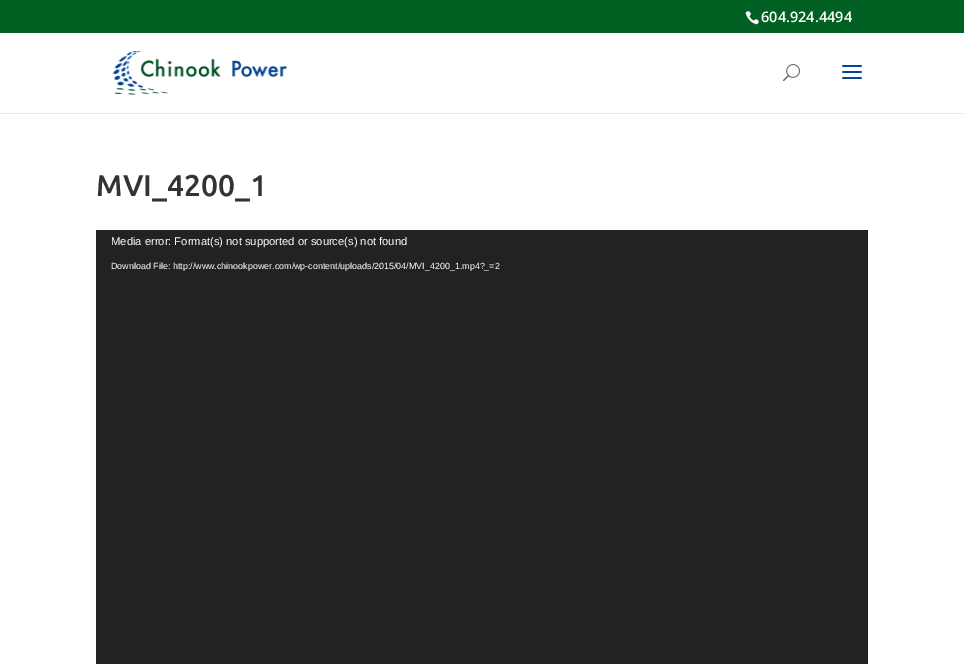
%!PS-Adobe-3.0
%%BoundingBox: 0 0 964 664
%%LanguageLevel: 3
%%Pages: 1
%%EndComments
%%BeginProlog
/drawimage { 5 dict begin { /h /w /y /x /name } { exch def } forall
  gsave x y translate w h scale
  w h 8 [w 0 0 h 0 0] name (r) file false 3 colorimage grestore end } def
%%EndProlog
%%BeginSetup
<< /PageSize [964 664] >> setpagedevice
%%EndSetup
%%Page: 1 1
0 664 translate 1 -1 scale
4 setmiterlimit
1 setgray
0 0 964 664 rectfill
0.004 0.38 0.133 setrgbcolor
0 0 964 33 rectfill
(images/1.raw) 745 11 14 14 drawimage
0.902 setgray
0 113 964 1 rectfill
(images/2.raw) 112 51 176 44 drawimage
(images/3.raw) 783 64 17 18 drawimage
(images/4.raw) 842 65 20 14 drawimage
0.133 setgray
96 230 772 434 rectfill
/OpenSans-SemiBold [14.5 0 0 -14.5 0 0] selectfont
1 setgray
761 22 moveto (604.924.4494) show
/Ubuntu-Medium [30 0 0 -30 0 0] selectfont
0.2 setgray
96 196 moveto (MVI_4200_1) show
/LiberationSans-Regular [11.2 0 0 -11.2 0 0] selectfont
1 setgray
111 245 moveto (Media error: Format\(s\) not supported or source\(s\) not found) show
/LiberationSans-Regular [8.95 0 0 -8.95 0 0] selectfont
111 269 moveto (Download File: http://www.chinookpower.com/wp-content/uploads/2015/04/MVI_4200_1.mp4?_=2) show
showpage
%%EOF
